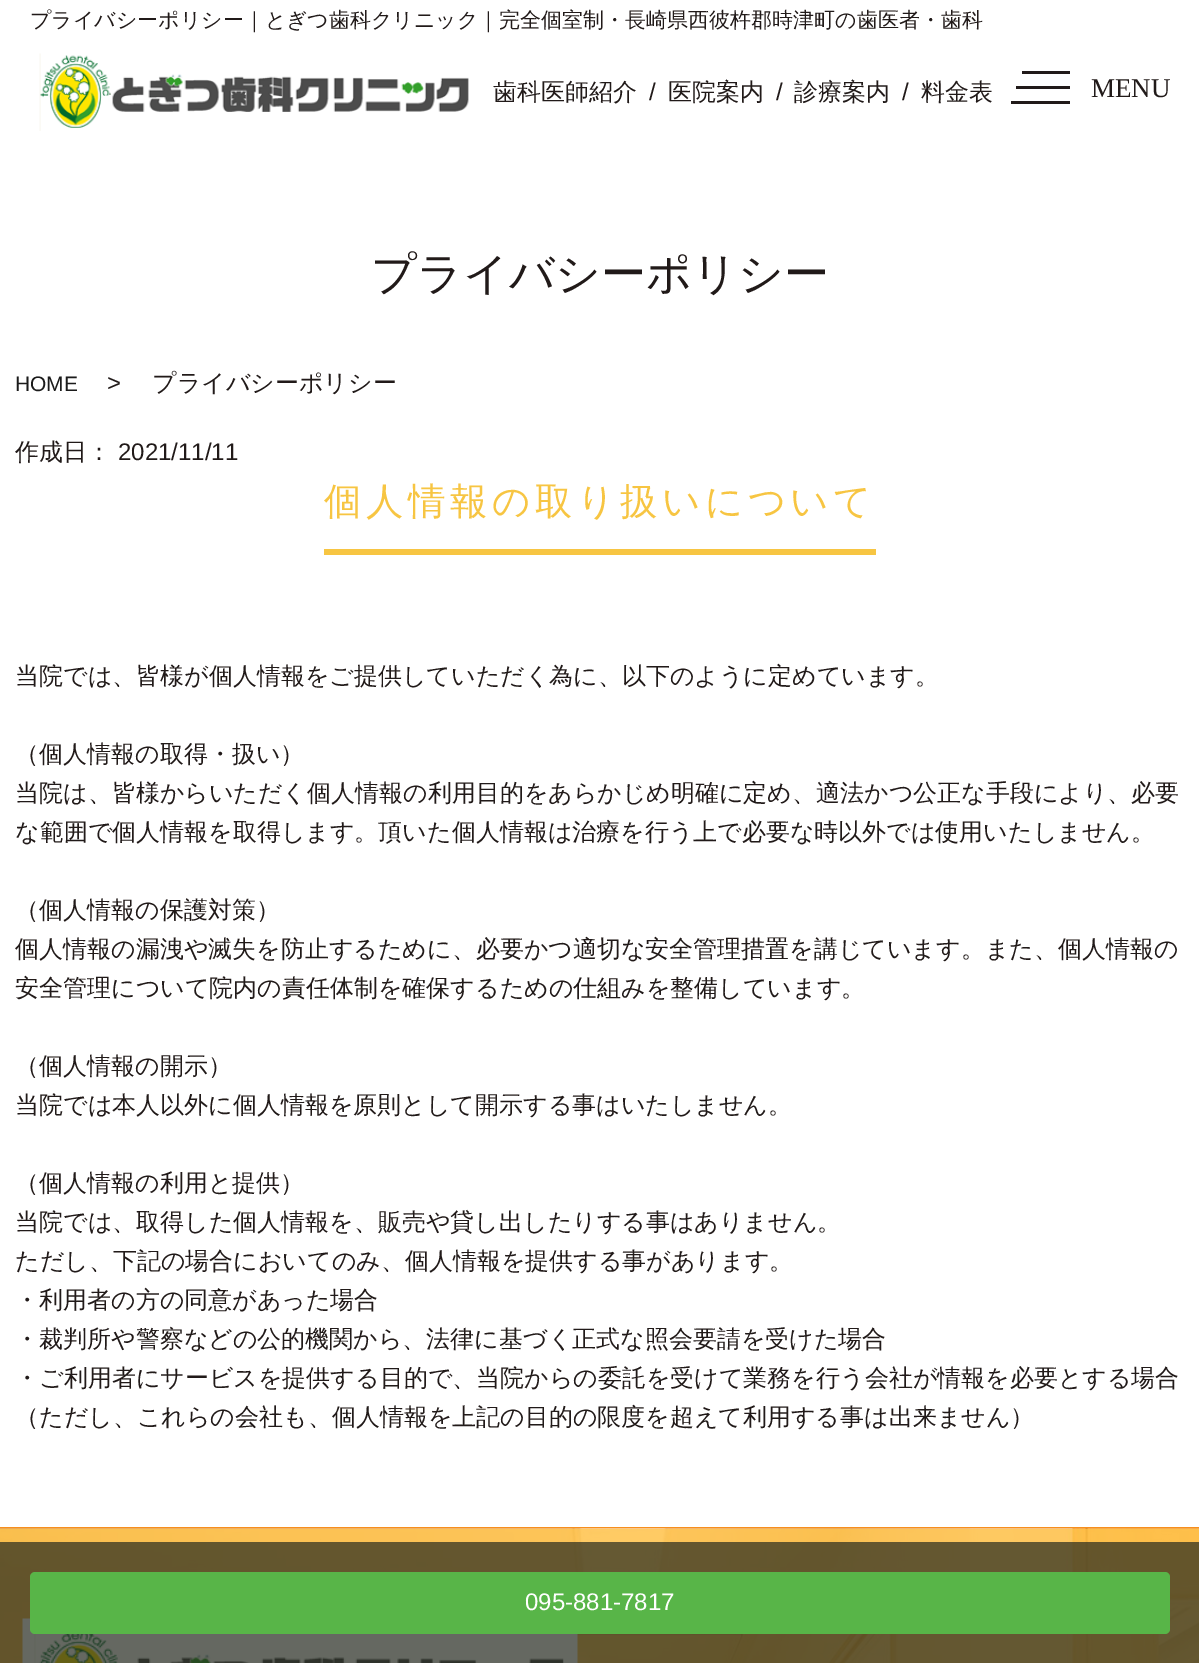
%!PS-Adobe-3.0
%%BoundingBox: 0 0 1199 1663
%%LanguageLevel: 3
%%Pages: 1
%%EndComments
%%BeginProlog
/setalpha { dup .setfillconstantalpha .setstrokeconstantalpha } def
/rrect { 5 dict begin { /r /h /w /y /x } { exch def } forall
  x r add y moveto x w add y 2 copy h add r arct x w add y h add x 1 index r arct
  x y h add x y r arct x y 2 copy exch w add exch r arct closepath end } def
/drawimage { 5 dict begin { /h /w /y /x /name } { exch def } forall
  gsave x y translate w h scale
  w h 8 [w 0 0 h 0 0] name (r) file false 3 colorimage grestore end } def
%%EndProlog
%%BeginSetup
<< /PageSize [1199 1663] /PageUsesTransparency true >> setpagedevice
%%EndSetup
%%Page: 1 1
0 .pushpdf14devicefilter
0 1663 translate 1 -1 scale
4 setmiterlimit
1 setgray
0 0 1199 1663 rectfill
(images/1.raw) 39 53 430 78 drawimage
0.129 0.102 0.098 setrgbcolor
1016 86 54 3 rectfill
1022 71 48 3 rectfill
1011 101 59 3 rectfill
0.969 0.773 0.259 setrgbcolor
324 549 552 6 rectfill
0.965 0.561 0.114 setrgbcolor
0 1527 1199 2 rectfill
(images/2.raw) 0 1528 1199 135 drawimage
(images/3.raw) 22 1618 556 45 drawimage
0.7 setalpha
0.137 0.157 0.118 setrgbcolor
0 1542 1199 121 rectfill
1 setalpha
0.345 0.71 0.282 setrgbcolor
30 1572 1140 62 5 rrect fill
/WenQuanYiZenHei-Medium [21 0 0 -21 0 0] selectfont
0.129 0.102 0.098 setrgbcolor
30 27 moveto (プライバシーポリシー｜とぎつ歯科クリニック｜完全個室制・長崎県西彼杵郡時津町の歯医者・歯科) show
/WenQuanYiZenHei-Medium [24 0 0 -24 0 0] selectfont
493 100 moveto (歯科医師紹介) show
/LiberationSans-Regular [24 0 0 -24 0 0] selectfont
649 100 moveto (/) show
/WenQuanYiZenHei-Medium [24 0 0 -24 0 0] selectfont
668 100 moveto (医院案内) show
/LiberationSans-Regular [24 0 0 -24 0 0] selectfont
776 100 moveto (/) show
/WenQuanYiZenHei-Medium [24 0 0 -24 0 0] selectfont
794 100 moveto (診療案内) show
/LiberationSans-Regular [24 0 0 -24 0 0] selectfont
902 100 moveto (/) show
/WenQuanYiZenHei-Medium [24 0 0 -24 0 0] selectfont
921 100 moveto (料金表) show
/LiberationSerif-Regular [27 0 0 -27 0 0] selectfont
1091 97 moveto (MENU) show
/WenQuanYiZenHei-Medium [45 0 0 -45 0 0] selectfont
371 289 moveto (プライバシーポリシー) show
/LiberationSans-Regular [21 0 0 -21 0 0] selectfont
0.106 setgray
15 391 moveto (HOME) show
/LiberationSans-Regular [24 0 0 -24 0 0] selectfont
0.129 0.102 0.098 setrgbcolor
107 391 moveto (>) show
/WenQuanYiZenHei-Medium [24 0 0 -24 0 0] selectfont
152 391 moveto (プライバシーポリシー) show
15 460 moveto (作成日：) show
/LiberationSans-Regular [24 0 0 -24 0 0] selectfont
118 460 moveto (2021/11/11) show
/WenQuanYiZenHei-Medium [37.5 0 0 -37.5 0 0] selectfont
0.969 0.773 0.259 setrgbcolor
324 514 moveto 4.5 0 (個人情報の取り扱いについて) ashow
/WenQuanYiZenHei-Medium [24 0 0 -24 0 0] selectfont
0.129 0.102 0.098 setrgbcolor
15 684 moveto (当院では、皆様が個人情報をご提供していただく為に、以下のように定めています。) show
15 762 moveto (（個人情報の取得・扱い）) show
15 801 moveto (当院は、皆様からいただく個人情報の利用目的をあらかじめ明確に定め、適法かつ公正な手段により、必要) show
15 840 moveto (な範囲で個人情報を取得します。頂いた個人情報は治療を行う上で必要な時以外では使用いたしません。) show
15 918 moveto (（個人情報の保護対策）) show
15 957 moveto (個人情報の漏洩や滅失を防止するために、必要かつ適切な安全管理措置を講じています。また、個人情報の) show
15 996 moveto (安全管理について院内の責任体制を確保するための仕組みを整備しています。) show
15 1074 moveto (（個人情報の開示）) show
15 1113 moveto (当院では本人以外に個人情報を原則として開示する事はいたしません。) show
15 1191 moveto (（個人情報の利用と提供）) show
15 1230 moveto (当院では、取得した個人情報を、販売や貸し出したりする事はありません。) show
15 1269 moveto (ただし、下記の場合においてのみ、個人情報を提供する事があります。) show
15 1308 moveto (・利用者の方の同意があった場合) show
15 1347 moveto (・裁判所や警察などの公的機関から、法律に基づく正式な照会要請を受けた場合) show
15 1386 moveto (・ご利用者にサービスを提供する目的で、当院からの委託を受けて業務を行う会社が情報を必要とする場合) show
15 1425 moveto (（ただし、これらの会社も、個人情報を上記の目的の限度を超えて利用する事は出来ません）) show
/LiberationSans-Regular [24 0 0 -24 0 0] selectfont
1 setgray
525 1610 moveto (095-881-7817) show
.poppdf14devicefilter showpage
%%EOF
